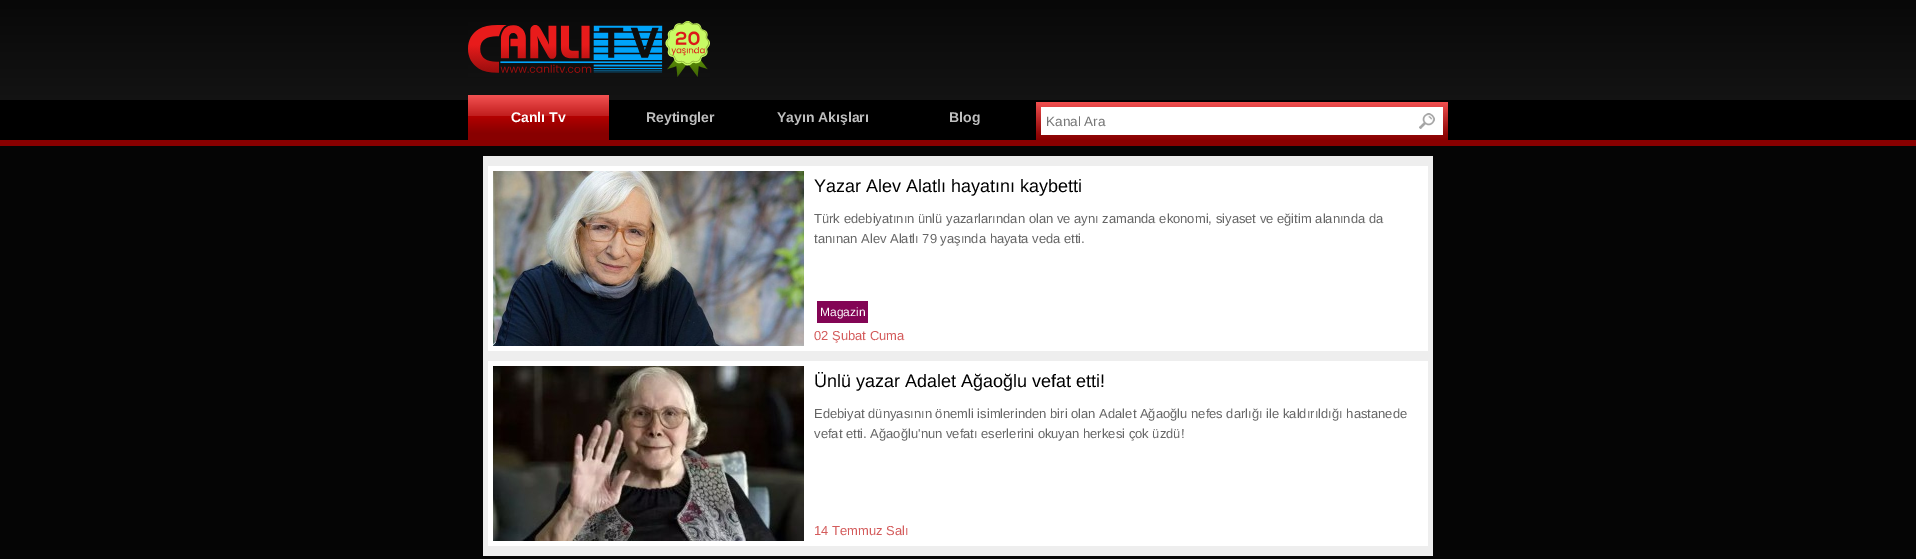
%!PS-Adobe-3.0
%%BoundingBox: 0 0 1916 559
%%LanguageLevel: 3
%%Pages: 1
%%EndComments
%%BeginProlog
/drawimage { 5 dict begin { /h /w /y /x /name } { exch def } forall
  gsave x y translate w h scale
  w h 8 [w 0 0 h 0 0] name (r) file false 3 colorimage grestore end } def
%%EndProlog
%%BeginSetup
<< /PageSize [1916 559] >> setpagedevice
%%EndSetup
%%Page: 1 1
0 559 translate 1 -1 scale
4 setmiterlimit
0.02 setgray
0 0 1916 559 rectfill
gsave newpath 0 0 moveto 1916 0 lineto 1916 95 lineto 0 95 lineto closepath clip newpath
<< /ShadingType 2 /ColorSpace /DeviceRGB /Coords [958 95 958 0] /Extend [true true] /Function << /FunctionType 2 /Domain [0 1] /C0 [0.075 0.075 0.075] /C1 [0.031 0.031 0.031] /N 1 >> >> shfill grestore
(images/1.raw) 468 21 242 56 drawimage
0.075 setgray
0 95 1916 5 rectfill
0 setgray
0 100 1916 40 rectfill
0.533 0 0 setrgbcolor
0 140 1916 6 rectfill
gsave newpath 468 95 moveto 609 95 lineto 609 140 lineto 468 140 lineto closepath clip newpath
<< /ShadingType 2 /ColorSpace /DeviceRGB /Coords [539 95 539 140] /Extend [true true] /Function << /FunctionType 3 /Domain [0 1] /Functions [<< /FunctionType 2 /Domain [0 1] /C0 [0.953 0.325 0.325] /C1 [0.761 0.118 0.118] /N 1 >> << /FunctionType 2 /Domain [0 1] /C0 [0.706 0 0] /C1 [0.533 0 0] /N 1 >> << /FunctionType 2 /Domain [0 1] /C0 [0.533 0 0] /C1 [0.533 0 0] /N 1 >>] /Bounds [0.46 0.85] /Encode [0 1 0 1 0 1] >> >> shfill grestore
gsave newpath 1036 102 moveto 1448 102 lineto 1448 140 lineto 1036 140 lineto closepath clip newpath
<< /ShadingType 2 /ColorSpace /DeviceRGB /Coords [1242 102 1242 140] /Extend [true true] /Function << /FunctionType 3 /Domain [0 1] /Functions [<< /FunctionType 2 /Domain [0 1] /C0 [0.945 0.31 0.31] /C1 [0.604 0.059 0.059] /N 1 >> << /FunctionType 2 /Domain [0 1] /C0 [0.604 0.059 0.059] /C1 [0.573 0.027 0.027] /N 1 >> << /FunctionType 2 /Domain [0 1] /C0 [0.573 0.027 0.027] /C1 [0.533 0 0] /N 1 >>] /Bounds [0.75 0.85] /Encode [0 1 0 1 0 1] >> >> shfill grestore
1 setgray
1041 107 402 28 rectfill
(images/2.raw) 1419 113 16 16 drawimage
0.933 setgray
483 156 950 400 rectfill
1 setgray
488 166 940 185 rectfill
(images/3.raw) 493 171 311 175 drawimage
0.514 0.02 0.333 setrgbcolor
817 301 51 22 rectfill
1 setgray
488 361 940 185 rectfill
(images/4.raw) 493 366 311 175 drawimage
/LiberationSans-Bold [14 0 0 -14 0 0] selectfont
511 122 moveto (Canlı Tv) show
0.749 setgray
646 122 moveto (Reytingler) show
777 122 moveto (Yayın Akışları) show
949 122 moveto (Blog) show
/LiberationSans-Regular [13.5 0 0 -13.5 0 0] selectfont
0.459 setgray
1046 126 moveto (Kanal Ara) show
/LiberationSans-Regular [18 0 0 -18 0 0] selectfont
0 setgray
814 192 moveto (Yazar Alev Alatlı hayatını kaybetti) show
/LiberationSans-Regular [13 0 0 -13 0 0] selectfont
0.4 setgray
814 223 moveto (Türk edebiyatının ünlü yazarlarından olan ve aynı zamanda ekonomi, siyaset ve eğitim alanında da) show
814 243 moveto (tanınan Alev Alatlı 79 yaşında hayata veda etti.) show
/LiberationSans-Regular [12 0 0 -12 0 0] selectfont
1 setgray
820 316 moveto (Magazin) show
/LiberationSans-Regular [13 0 0 -13 0 0] selectfont
0.831 0.357 0.357 setrgbcolor
814 340 moveto (02 Şubat Cuma) show
/LiberationSans-Regular [18 0 0 -18 0 0] selectfont
0 setgray
814 387 moveto (Ünlü yazar Adalet Ağaoğlu vefat etti!) show
/LiberationSans-Regular [13 0 0 -13 0 0] selectfont
0.4 setgray
814 418 moveto (Edebiyat dünyasının önemli isimlerinden biri olan Adalet Ağaoğlu nefes darlığı ile kaldırıldığı hastanede) show
814 438 moveto (vefat etti. Ağaoğlu'nun vefatı eserlerini okuyan herkesi çok üzdü!) show
0.831 0.357 0.357 setrgbcolor
814 535 moveto (14 Temmuz Salı) show
showpage
%%EOF
